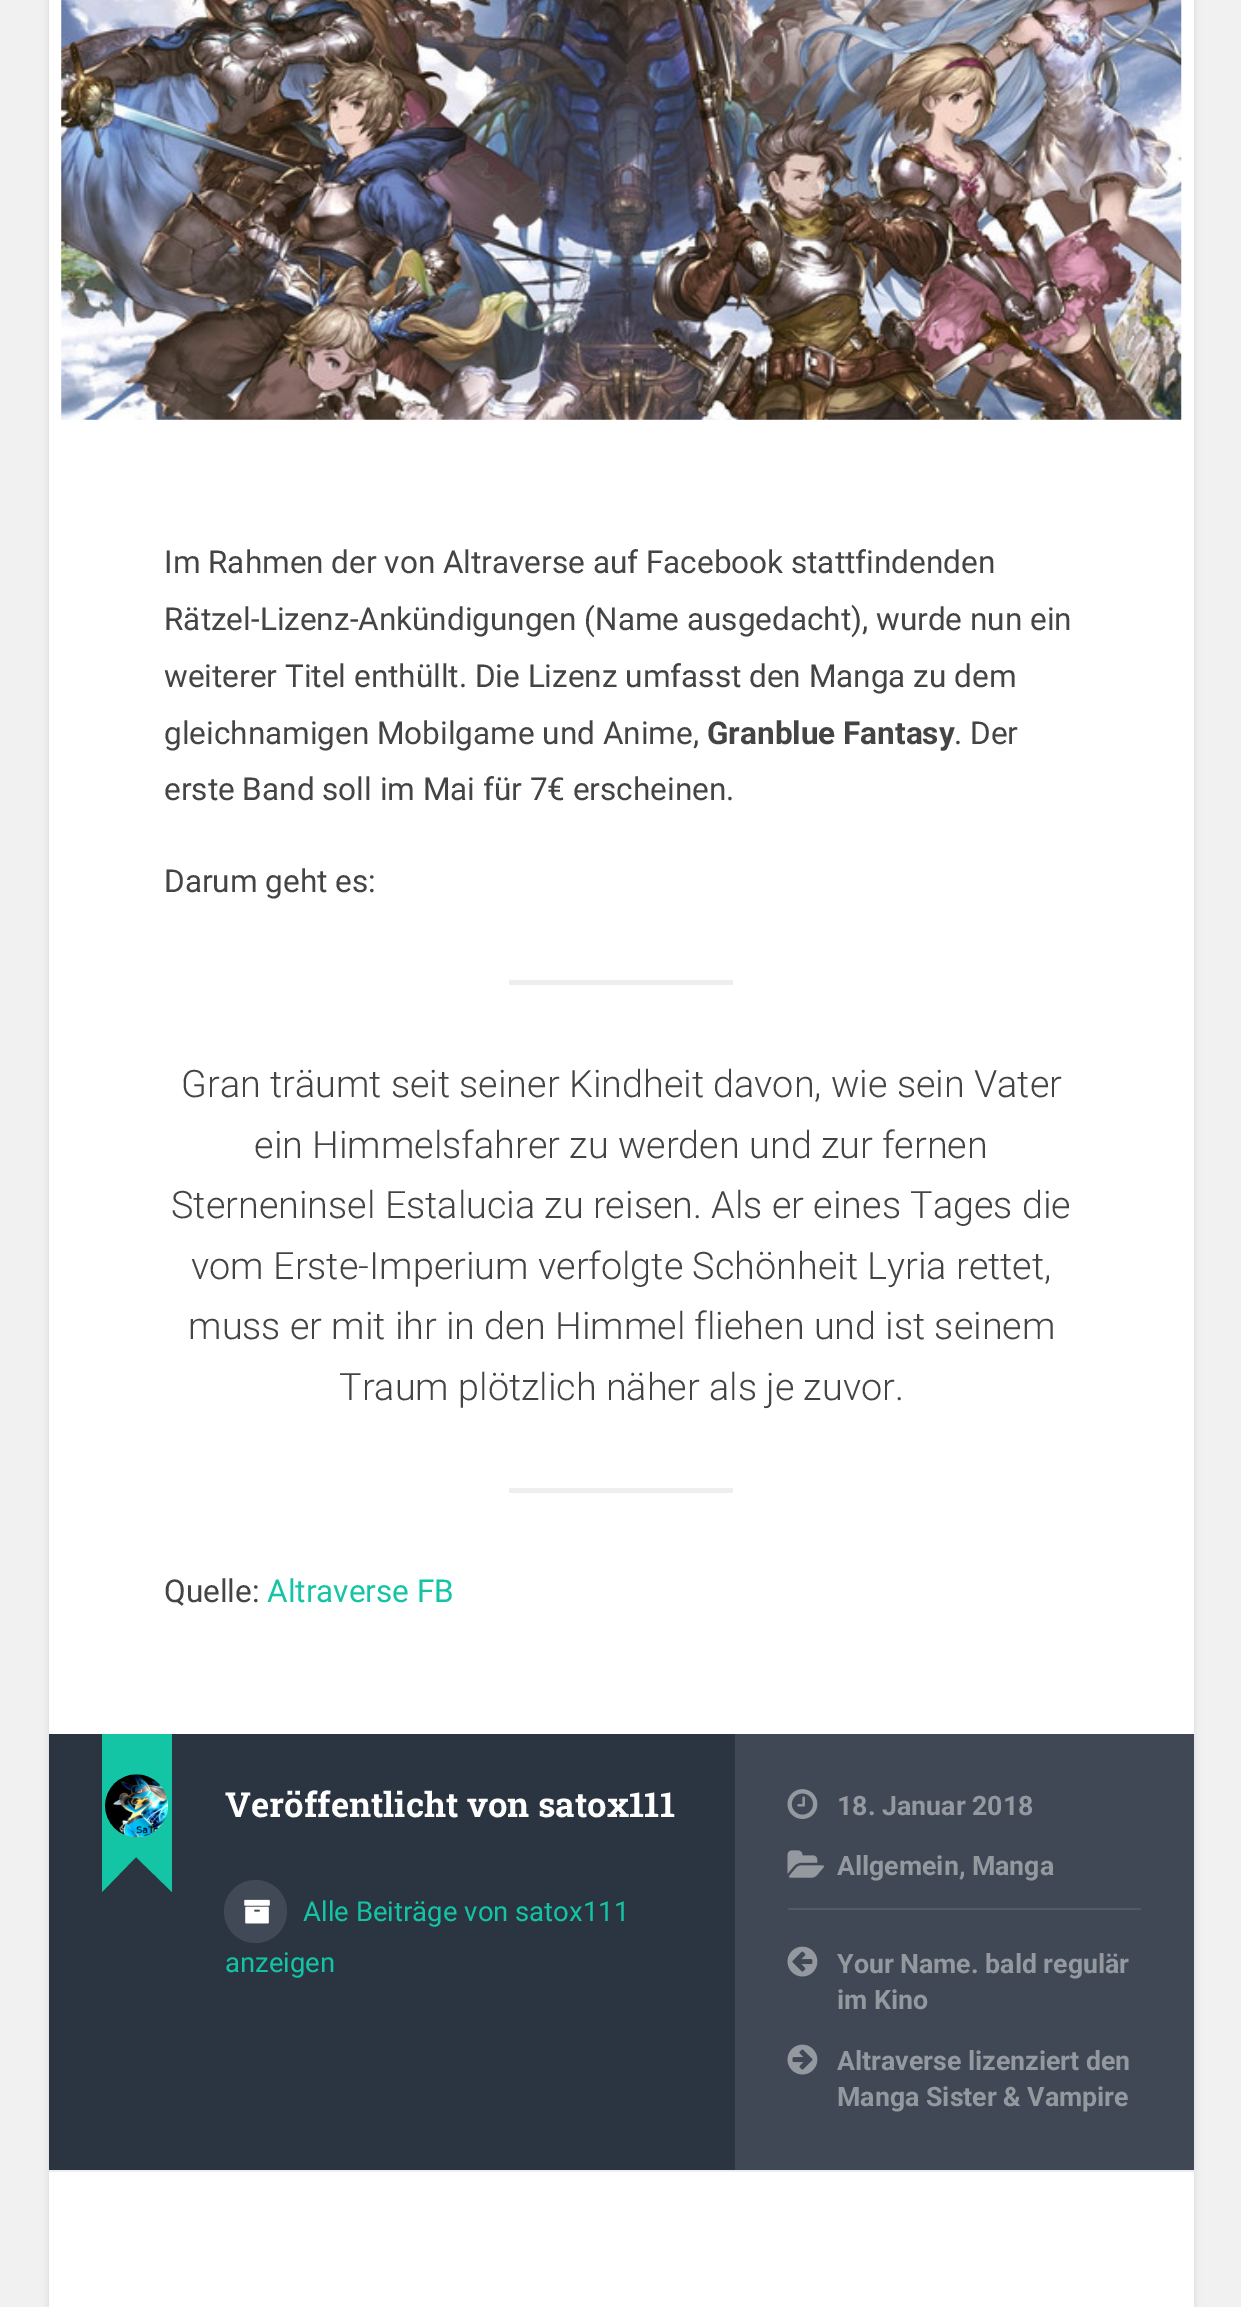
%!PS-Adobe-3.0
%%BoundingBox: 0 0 1241 2307
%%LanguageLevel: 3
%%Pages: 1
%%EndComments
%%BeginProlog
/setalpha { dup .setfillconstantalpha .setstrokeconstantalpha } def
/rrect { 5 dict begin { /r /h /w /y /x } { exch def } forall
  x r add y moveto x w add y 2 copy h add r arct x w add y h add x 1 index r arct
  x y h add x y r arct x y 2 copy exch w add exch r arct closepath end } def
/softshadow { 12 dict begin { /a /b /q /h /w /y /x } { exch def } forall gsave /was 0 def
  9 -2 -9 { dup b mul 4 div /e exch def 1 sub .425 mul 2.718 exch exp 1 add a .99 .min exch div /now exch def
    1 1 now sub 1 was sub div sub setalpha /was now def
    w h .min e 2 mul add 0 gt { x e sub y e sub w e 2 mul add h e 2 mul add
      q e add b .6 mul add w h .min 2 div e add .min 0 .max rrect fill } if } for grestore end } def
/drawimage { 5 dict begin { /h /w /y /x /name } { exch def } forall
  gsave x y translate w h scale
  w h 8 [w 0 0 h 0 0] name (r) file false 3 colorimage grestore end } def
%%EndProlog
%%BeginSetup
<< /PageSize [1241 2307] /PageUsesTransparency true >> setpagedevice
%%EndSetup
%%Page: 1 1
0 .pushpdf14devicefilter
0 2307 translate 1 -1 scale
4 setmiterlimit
0.945 setgray
0 0 1241 2307 rectfill
0 setgray
49 -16 1145 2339 5 3.5 0.1 softshadow
1 setgray
49 0 1145 2307 rectfill
(images/1.raw) 61 0 1121 420 drawimage
0.933 setgray
509 980 224 5 rectfill
509 1488 224 5 rectfill
0.169 0.208 0.259 setrgbcolor
49 1734 686 436 rectfill
0.075 0.769 0.647 setrgbcolor
newpath 172 1822 moveto 172 1892 lineto 136 1857 lineto closepath fill
newpath 102 1892 moveto 102 1822 lineto 136 1857 lineto closepath fill
102 1734 70 123 rectfill
(images/2.raw) 105 1774 63 64 drawimage
0.251 0.286 0.333 setrgbcolor
newpath 255.5 1911.5 31.5 0 360 arc closepath fill
(images/3.raw) 244 1899 26 25 drawimage
0.247 0.282 0.329 setrgbcolor
735 1734 459 436 rectfill
(images/4.raw) 787 1789 31 30 drawimage
(images/5.raw) 787 1850 37 28 drawimage
0.322 0.353 0.396 setrgbcolor
788 1908 353 2 rectfill
(images/6.raw) 787 1946 31 31 drawimage
(images/7.raw) 787 2044 31 31 drawimage
0.933 setgray
49 2170 1145 2 rectfill
/Roboto-Regular [31.5 0 0 -31.5 0 0] selectfont
0.267 setgray
164 573 moveto (Im Rahmen der von Altraverse auf Facebook stattfindenden) show
164 630 moveto (Rätzel-Lizenz-Ankündigungen \(Name ausgedacht\), wurde nun ein) show
164 687 moveto (weiterer Titel enthüllt. Die Lizenz umfasst den Manga zu dem) show
164 744 moveto (gleichnamigen Mobilgame und Anime,) show
/Roboto-Bold [31.5 0 0 -31.5 0 0] selectfont
707 744 moveto (Granblue Fantasy) show
/Roboto-Regular [31.5 0 0 -31.5 0 0] selectfont
954 744 moveto (. Der) show
164 800 moveto (erste Band soll im Mai für 7€ erscheinen.) show
164 892 moveto (Darum geht es:) show
/Roboto-Light [37.8 0 0 -37.8 0 0] selectfont
181 1097 moveto (Gran träumt seit seiner Kindheit davon, wie sein Vater) show
254 1158 moveto (ein Himmelsfahrer zu werden und zur fernen) show
171 1218 moveto (Sterneninsel Estalucia zu reisen. Als er eines Tages die) show
191 1279 moveto (vom Erste-Imperium verfolgte Schönheit Lyria rettet,) show
188 1339 moveto (muss er mit ihr in den Himmel fliehen und ist seinem) show
339 1400 moveto (Traum plötzlich näher als je zuvor.) show
/Roboto-Regular [31.5 0 0 -31.5 0 0] selectfont
164 1602 moveto (Quelle:) show
0.075 0.769 0.647 setrgbcolor
267 1602 moveto (Altraverse FB) show
/RobotoSlab-Bold [34.6 0 0 -34.6 0 0] selectfont
1 setgray
225 1817 moveto (Veröffentlicht von satox111) show
/Roboto-Regular [27.5 0 0 -27.5 0 0] selectfont
0.075 0.769 0.647 setrgbcolor
303 1921 moveto (Alle Beiträge von satox111) show
225 1972 moveto (anzeigen) show
/Roboto-Bold [26.75 0 0 -26.75 0 0] selectfont
0.58 0.6 0.627 setrgbcolor
837 1815 moveto (18. Januar 2018) show
837 1875 moveto (Allgemein, Manga) show
837 1973 moveto (Your Name. bald regulär) show
837 2009 moveto (im Kino) show
837 2070 moveto (Altraverse lizenziert den) show
837 2106 moveto (Manga Sister & Vampire) show
.poppdf14devicefilter showpage
%%EOF
